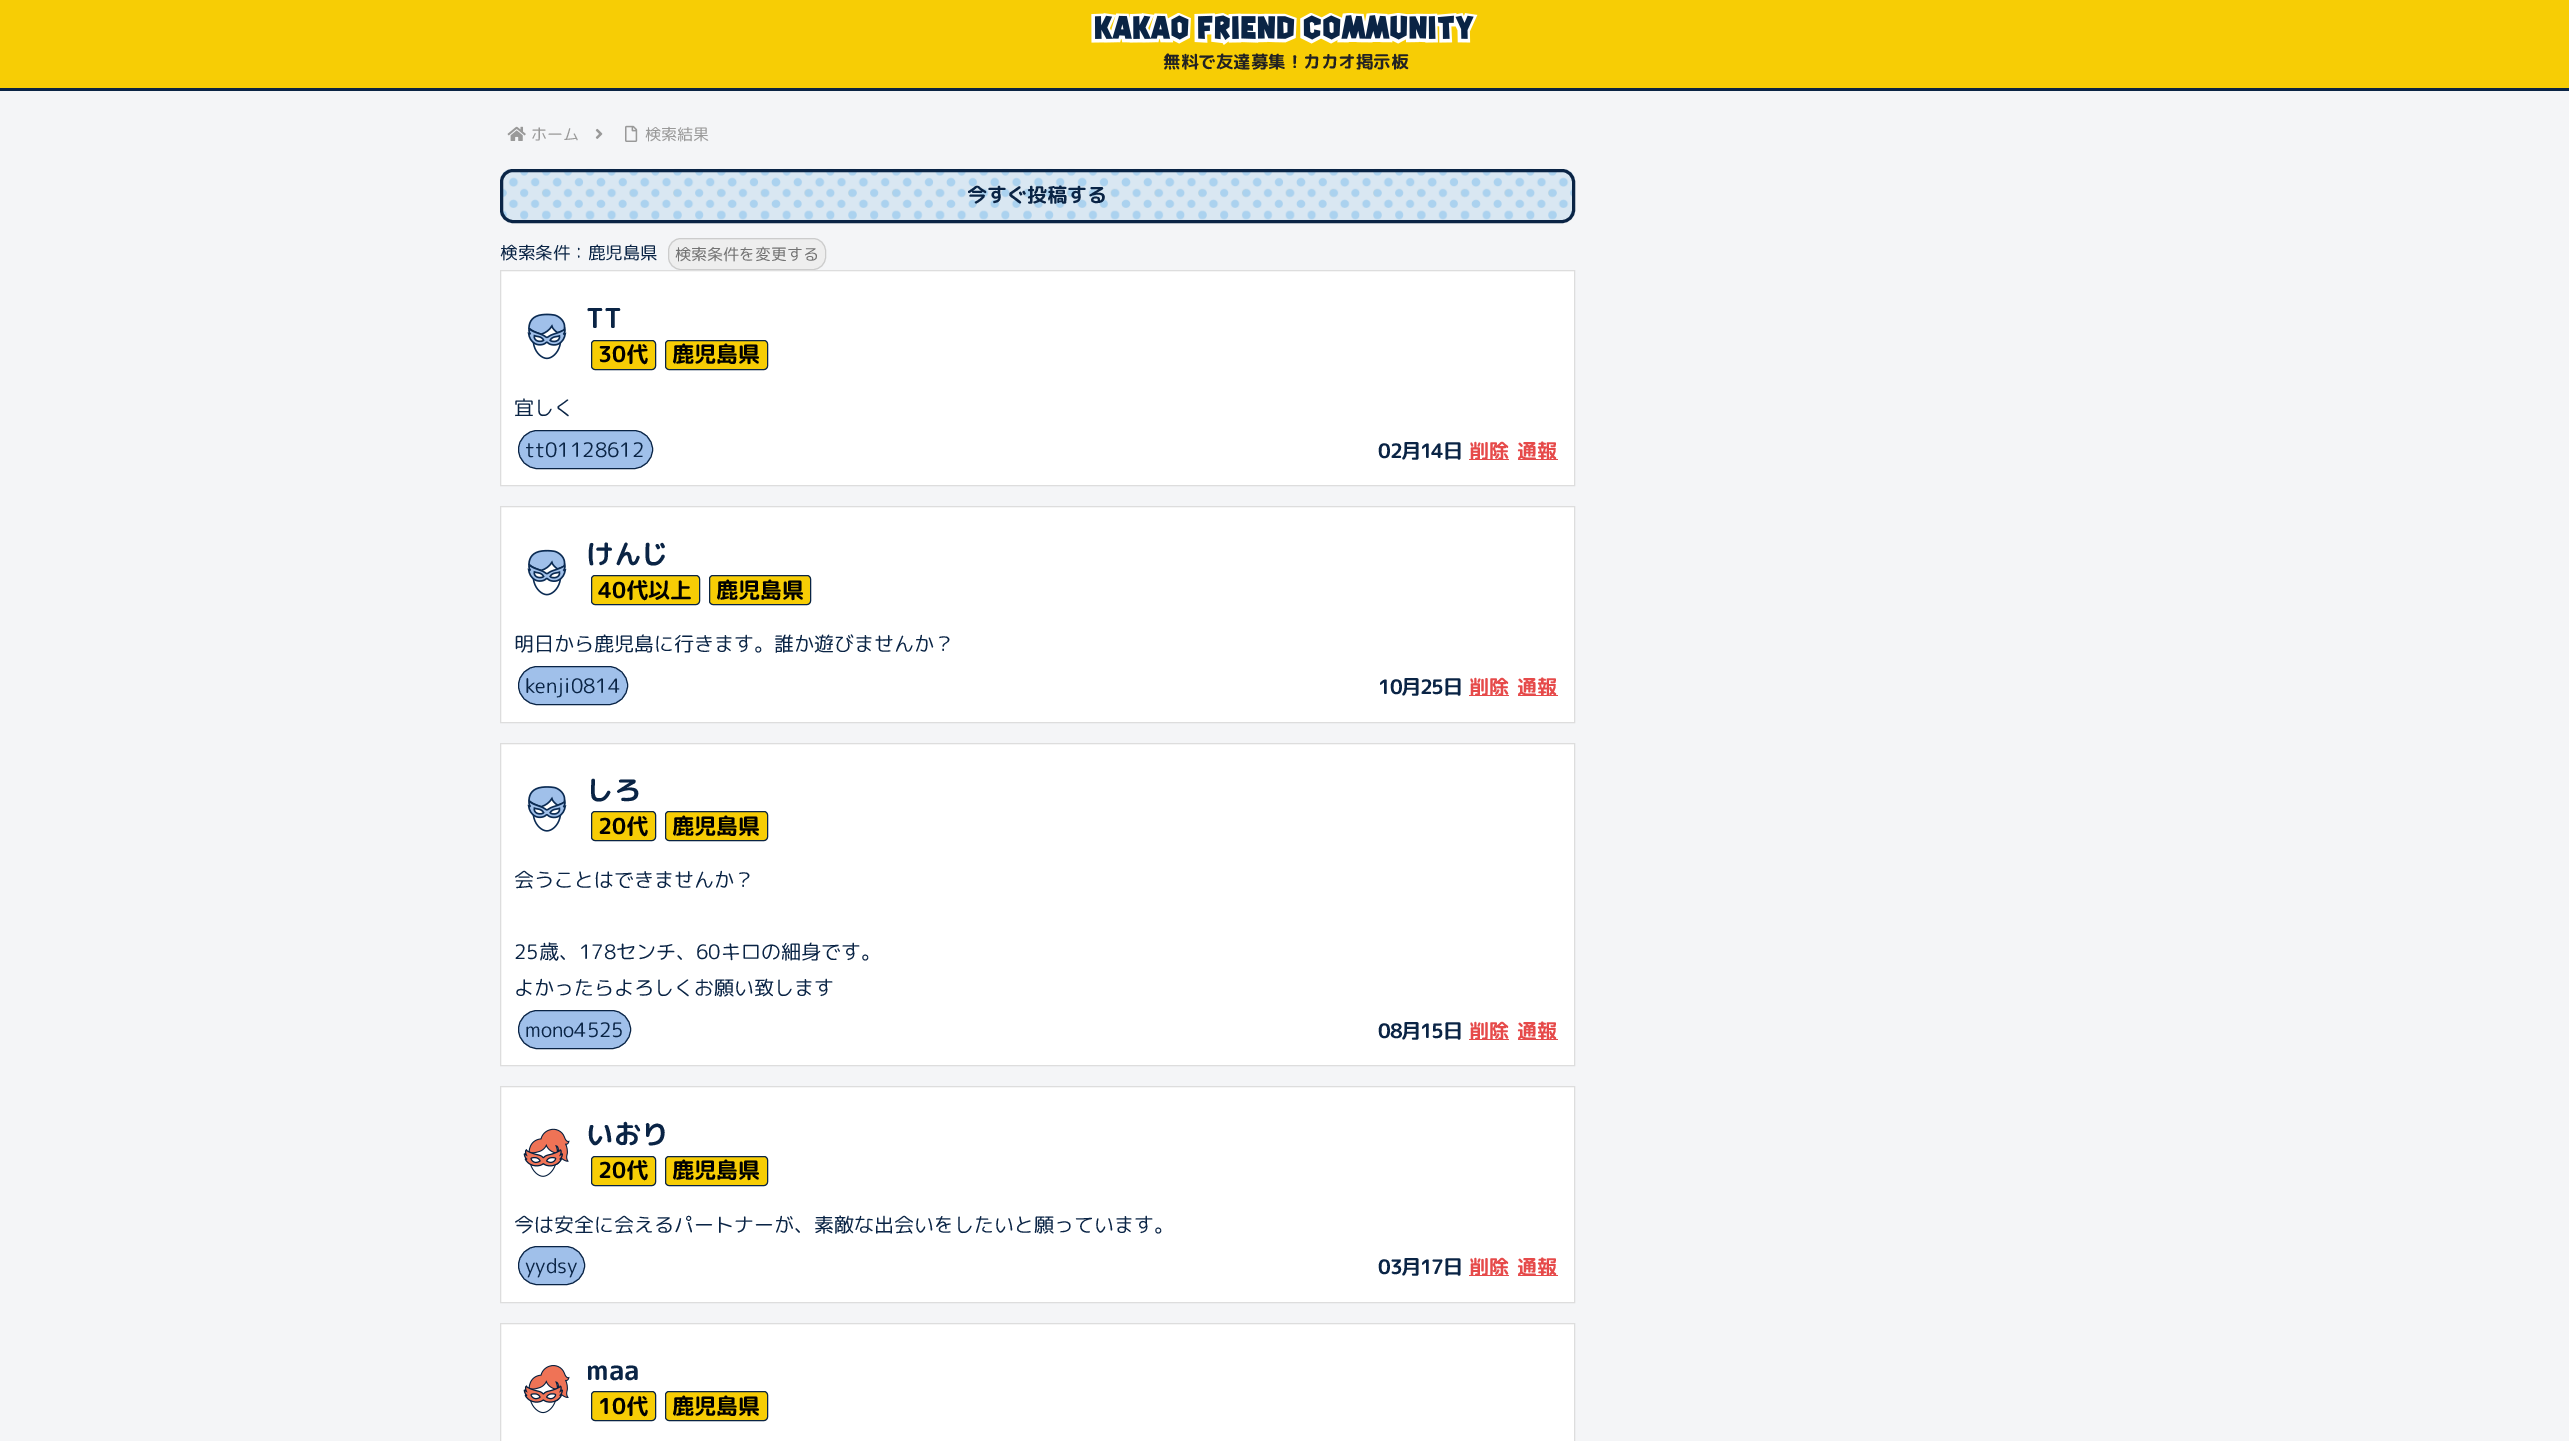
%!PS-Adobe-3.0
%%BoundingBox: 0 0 2569 1441
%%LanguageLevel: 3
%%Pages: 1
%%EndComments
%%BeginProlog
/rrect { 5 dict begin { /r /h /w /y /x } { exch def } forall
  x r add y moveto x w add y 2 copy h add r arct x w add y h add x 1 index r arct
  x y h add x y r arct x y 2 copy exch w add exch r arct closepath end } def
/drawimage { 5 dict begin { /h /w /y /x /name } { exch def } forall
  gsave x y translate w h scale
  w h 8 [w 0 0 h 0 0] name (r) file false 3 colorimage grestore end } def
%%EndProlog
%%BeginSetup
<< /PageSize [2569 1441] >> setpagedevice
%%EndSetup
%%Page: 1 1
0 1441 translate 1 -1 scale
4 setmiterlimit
0.957 0.961 0.969 setrgbcolor
0 0 2569 1441 rectfill
0.969 0.804 0.02 setrgbcolor
0 0 2569 88 rectfill
0.039 0.141 0.271 setrgbcolor
0 88 2569 3 rectfill
(images/1.raw) 1091 13 387 32 drawimage
(images/2.raw) 507 126 19 15 drawimage
(images/3.raw) 595 128 8 11 drawimage
(images/4.raw) 625 125 13 17 drawimage
(images/5.raw) 500 168 1075 55 drawimage
3 setlinewidth
501.5 170.5 1072 51 11.5 rrect stroke
0.933 setgray
668.5 238.5 157 31 12.5 rrect gsave fill grestore
0.8 setgray
1 setlinewidth
stroke
1 setgray
newpath 500.5 270.5 moveto 1574.5 270.5 lineto 1574.5 485.5 lineto 500.5 485.5 lineto closepath gsave fill grestore
0.867 setgray
stroke
(images/6.raw) 527 313 40 47 drawimage
0.969 0.804 0.02 setrgbcolor
591.5 340.5 64 29 3.5 rrect gsave fill grestore
0.039 0.141 0.271 setrgbcolor
stroke
0.969 0.804 0.02 setrgbcolor
665.5 340.5 102 29 3.5 rrect gsave fill grestore
0.039 0.141 0.271 setrgbcolor
stroke
0.627 0.753 0.918 setrgbcolor
518.5 430.5 134 38 19 rrect gsave fill grestore
0.039 0.141 0.271 setrgbcolor
stroke
0.902 0.29 0.29 setrgbcolor
1469 459 40 1 rectfill
1518 459 40 1 rectfill
1 setgray
newpath 500.5 506.5 moveto 1574.5 506.5 lineto 1574.5 722.5 lineto 500.5 722.5 lineto closepath gsave fill grestore
0.867 setgray
stroke
(images/7.raw) 527 549 40 47 drawimage
0.969 0.804 0.02 setrgbcolor
591.5 575.5 108 29 3.5 rrect gsave fill grestore
0.039 0.141 0.271 setrgbcolor
stroke
0.969 0.804 0.02 setrgbcolor
709.5 575.5 101 29 3.5 rrect gsave fill grestore
0.039 0.141 0.271 setrgbcolor
stroke
0.627 0.753 0.918 setrgbcolor
518.5 666.5 109 38 19 rrect gsave fill grestore
0.039 0.141 0.271 setrgbcolor
stroke
0.902 0.29 0.29 setrgbcolor
1469 695 40 1 rectfill
1518 695 40 1 rectfill
1 setgray
newpath 500.5 743.5 moveto 1574.5 743.5 lineto 1574.5 1065.5 lineto 500.5 1065.5 lineto closepath gsave fill grestore
0.867 setgray
stroke
(images/8.raw) 527 786 40 46 drawimage
0.969 0.804 0.02 setrgbcolor
591.5 811.5 64 29 3.5 rrect gsave fill grestore
0.039 0.141 0.271 setrgbcolor
stroke
0.969 0.804 0.02 setrgbcolor
665.5 811.5 102 29 3.5 rrect gsave fill grestore
0.039 0.141 0.271 setrgbcolor
stroke
0.627 0.753 0.918 setrgbcolor
518.5 1010.5 112 38 19 rrect gsave fill grestore
0.039 0.141 0.271 setrgbcolor
stroke
0.902 0.29 0.29 setrgbcolor
1469 1039 40 1 rectfill
1518 1039 40 1 rectfill
1 setgray
newpath 500.5 1086.5 moveto 1574.5 1086.5 lineto 1574.5 1302.5 lineto 500.5 1302.5 lineto closepath gsave fill grestore
0.867 setgray
stroke
(images/9.raw) 523 1128 47 49 drawimage
0.969 0.804 0.02 setrgbcolor
591.5 1156.5 64 29 3.5 rrect gsave fill grestore
0.039 0.141 0.271 setrgbcolor
stroke
0.969 0.804 0.02 setrgbcolor
665.5 1156.5 102 29 3.5 rrect gsave fill grestore
0.039 0.141 0.271 setrgbcolor
stroke
0.627 0.753 0.918 setrgbcolor
518.5 1246.5 66 38 19 rrect gsave fill grestore
0.039 0.141 0.271 setrgbcolor
stroke
0.902 0.29 0.29 setrgbcolor
1469 1275 40 1 rectfill
1518 1275 40 1 rectfill
1 setgray
newpath 500.5 1323.5 moveto 1574.5 1323.5 lineto 1574.5 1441.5 lineto 500.5 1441.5 lineto closepath gsave fill grestore
0.867 setgray
stroke
(images/10.raw) 523 1365 47 49 drawimage
0.969 0.804 0.02 setrgbcolor
591.5 1391.5 64 29 3.5 rrect gsave fill grestore
0.039 0.141 0.271 setrgbcolor
stroke
0.969 0.804 0.02 setrgbcolor
665.5 1391.5 102 29 3.5 rrect gsave fill grestore
0.039 0.141 0.271 setrgbcolor
stroke
/RoundedMplus1cBold-Bold [17.5 0 0 -17.5 0 0] selectfont
0.133 setgray
1163 68 moveto (無料で友達募集！カカオ掲示板) show
/RoundedMplus1c-Regular [16 0 0 -16 0 0] selectfont
0.6 setgray
531 140 moveto (ホーム) show
645 140 moveto (検索結果) show
/RoundedMplus1cBold-Bold [20 0 0 -20 0 0] selectfont
0.039 0.141 0.271 setrgbcolor
967 202 moveto (今すぐ投稿する) show
/RoundedMplus1c-Regular [17.5 0 0 -17.5 0 0] selectfont
500 259 moveto (検索条件：鹿児島県) show
/RoundedMplus1c-Regular [16 0 0 -16 0 0] selectfont
0.451 setgray
675 260 moveto (検索条件を変更する) show
/RoundedMplus1cBold-Bold [27.5 0 0 -27.5 0 0] selectfont
0.039 0.141 0.271 setrgbcolor
586 328 moveto (TT) show
/RoundedMplus1cBold-Bold [22 0 0 -22 0 0] selectfont
0 setgray
598 362 moveto (30代) show
672 362 moveto (鹿児島県) show
/RoundedMplus1c-Regular [20 0 0 -20 0 0] selectfont
0.039 0.141 0.271 setrgbcolor
514 415 moveto (宜しく) show
525 457 moveto (tt01128612) show
/RoundedMplus1cBold-Bold [20 0 0 -20 0 0] selectfont
1378 458 moveto -1.25 0 (02月14日) ashow
0.902 0.29 0.29 setrgbcolor
1469 458 moveto (削除) show
1517 458 moveto (通報) show
/RoundedMplus1cBold-Bold [27.5 0 0 -27.5 0 0] selectfont
0.039 0.141 0.271 setrgbcolor
586 564 moveto (けんじ) show
/RoundedMplus1cBold-Bold [22 0 0 -22 0 0] selectfont
0 setgray
598 598 moveto (40代以上) show
716 598 moveto (鹿児島県) show
/RoundedMplus1c-Regular [20 0 0 -20 0 0] selectfont
0.039 0.141 0.271 setrgbcolor
514 651 moveto (明日から鹿児島に行きます。誰か遊びませんか？) show
525 693 moveto (kenji0814) show
/RoundedMplus1cBold-Bold [20 0 0 -20 0 0] selectfont
1378 694 moveto -1.25 0 (10月25日) ashow
0.902 0.29 0.29 setrgbcolor
1469 694 moveto (削除) show
1517 694 moveto (通報) show
/RoundedMplus1cBold-Bold [27.5 0 0 -27.5 0 0] selectfont
0.039 0.141 0.271 setrgbcolor
586 800 moveto (しろ) show
/RoundedMplus1cBold-Bold [22 0 0 -22 0 0] selectfont
0 setgray
598 834 moveto (20代) show
672 834 moveto (鹿児島県) show
/RoundedMplus1c-Regular [20 0 0 -20 0 0] selectfont
0.039 0.141 0.271 setrgbcolor
514 887 moveto (会うことはできませんか？) show
514 959 moveto (25歳、178センチ、60キロの細身です。) show
514 995 moveto (よかったらよろしくお願い致します) show
525 1037 moveto (mono4525) show
/RoundedMplus1cBold-Bold [20 0 0 -20 0 0] selectfont
1378 1038 moveto -1.25 0 (08月15日) ashow
0.902 0.29 0.29 setrgbcolor
1469 1038 moveto (削除) show
1517 1038 moveto (通報) show
/RoundedMplus1cBold-Bold [27.5 0 0 -27.5 0 0] selectfont
0.039 0.141 0.271 setrgbcolor
586 1144 moveto (いおり) show
/RoundedMplus1cBold-Bold [22 0 0 -22 0 0] selectfont
0 setgray
598 1178 moveto (20代) show
672 1178 moveto (鹿児島県) show
/RoundedMplus1c-Regular [20 0 0 -20 0 0] selectfont
0.039 0.141 0.271 setrgbcolor
514 1232 moveto (今は安全に会えるパートナーが、素敵な出会いをしたいと願っています。) show
525 1273 moveto (yydsy) show
/RoundedMplus1cBold-Bold [20 0 0 -20 0 0] selectfont
1378 1274 moveto -1.25 0 (03月17日) ashow
0.902 0.29 0.29 setrgbcolor
1469 1274 moveto (削除) show
1517 1274 moveto (通報) show
/RoundedMplus1cBold-Bold [27.5 0 0 -27.5 0 0] selectfont
0.039 0.141 0.271 setrgbcolor
586 1380 moveto (maa) show
/RoundedMplus1cBold-Bold [22 0 0 -22 0 0] selectfont
0 setgray
598 1414 moveto (10代) show
672 1414 moveto (鹿児島県) show
showpage
%%EOF
